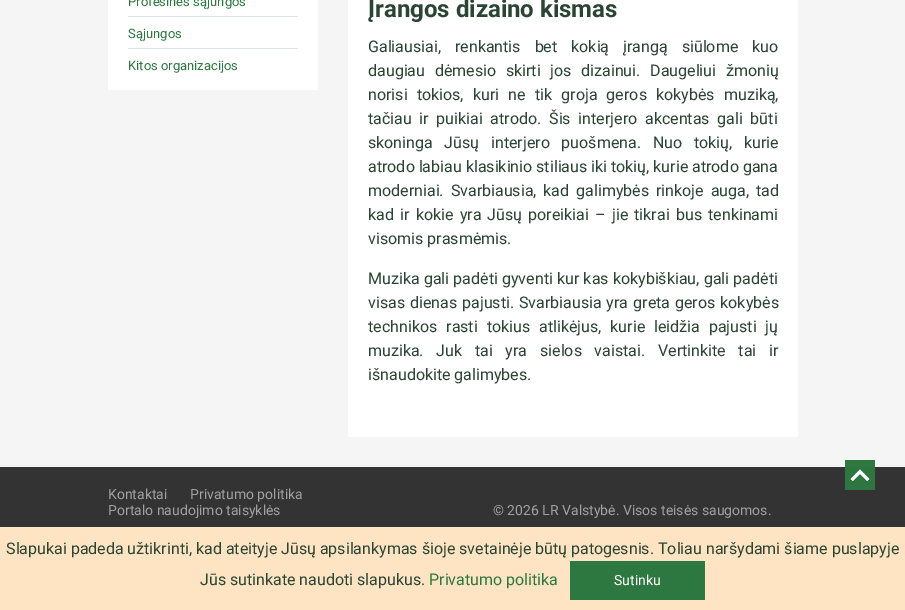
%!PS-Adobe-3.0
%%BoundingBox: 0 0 905 610
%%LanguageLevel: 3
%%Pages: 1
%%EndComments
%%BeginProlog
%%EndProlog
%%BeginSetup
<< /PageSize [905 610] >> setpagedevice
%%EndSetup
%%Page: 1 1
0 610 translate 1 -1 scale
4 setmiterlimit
0.961 setgray
0 0 905 610 rectfill
0.184 0.471 0.259 setrgbcolor
845 460 30 7 rectfill
1 setgray
108 0 210 90 rectfill
0.859 0.898 0.914 setrgbcolor
128 16 170 1 rectfill
128 48 170 1 rectfill
1 setgray
348 0 450 437 rectfill
0.2 setgray
0 467 905 60 rectfill
0.176 0.463 0.251 setrgbcolor
845 467 30 23 rectfill
0.992 setgray
newpath 867 481 moveto 860 474 lineto 853 481 lineto 850.5 479 lineto 860 469.5 lineto 869.5 479 lineto closepath eofill
1 0.894 0.769 setrgbcolor
0 527 905 83 rectfill
0.176 0.467 0.251 setrgbcolor
570 561 135 39 rectfill
/Roboto-Regular [13 0 0 -13 0 0] selectfont
128 6 moveto (Profesinės sąjungos) show
128 38 moveto (Sąjungos) show
128 70 moveto (Kitos organizacijos) show
/Roboto-Bold [24 0 0 -24 0 0] selectfont
0.169 0.267 0.2 setrgbcolor
368 17 moveto (Įrangos dizaino kismas) show
/Roboto-Regular [16 0 0 -16 0 0] selectfont
368 52 moveto 10 0 32 (Galiausiai, renkantis bet kokią įrangą siūlome kuo) widthshow
368 76 moveto 5.75 0 32 (daugiau dėmesio skirti jos dizainui. Daugeliui žmonių) widthshow
368 100 moveto 5.25 0 32 (norisi tokios, kuri ne tik groja geros kokybės muziką,) widthshow
368 124 moveto 3.75 0 32 (tačiau ir puikiai atrodo. Šis interjero akcentas gali būti) widthshow
368 148 moveto 7.75 0 32 (skoninga Jūsų interjero puošmena. Nuo tokių, kurie) widthshow
368 172 moveto (atrodo labiau klasikinio stiliaus iki tokių, kurie atrodo gana) show
368 196 moveto 3 0 32 (moderniai. Svarbiausia, kad galimybės rinkoje auga, tad) widthshow
368 220 moveto 2.25 0 32 (kad ir kokie yra Jūsų poreikiai – jie tikrai bus tenkinami) widthshow
368 244 moveto (visomis prasmėmis.) show
368 284 moveto 0.25 0 32 (Muzika gali padėti gyventi kur kas kokybiškiau, gali padėti) widthshow
368 308 moveto 1 0 32 (visas dienas pajusti. Svarbiausia yra greta geros kokybės) widthshow
368 332 moveto 5 0 32 (technikos rasti tokius atlikėjus, kurie leidžia pajusti jų) widthshow
368 356 moveto 8.75 0 32 (muzika. Juk tai yra sielos vaistai. Vertinkite tai ir) widthshow
368 380 moveto (išnaudokite galimybes.) show
/Roboto-Regular [14 0 0 -14 0 0] selectfont
0.631 setgray
108 499 moveto (Kontaktai) show
190 499 moveto (Privatumo politika) show
108 515 moveto (Portalo naudojimo taisyklės) show
493 515 moveto (© 2026 LR Valstybė. Visos teisės saugomos.) show
/Roboto-Regular [16 0 0 -16 0 0] selectfont
0.169 0.267 0.2 setrgbcolor
6 554 moveto (Slapukai padeda užtikrinti, kad ateityje Jūsų apsilankymas šioje svetainėje būtų patogesnis. Toliau naršydami šiame puslapyje) show
200 585 moveto (Jūs sutinkate naudoti slapukus.) show
0.176 0.467 0.251 setrgbcolor
429 585 moveto (Privatumo politika) show
/Roboto-Regular [14 0 0 -14 0 0] selectfont
1 setgray
614 585 moveto (Sutinku) show
showpage
%%EOF
